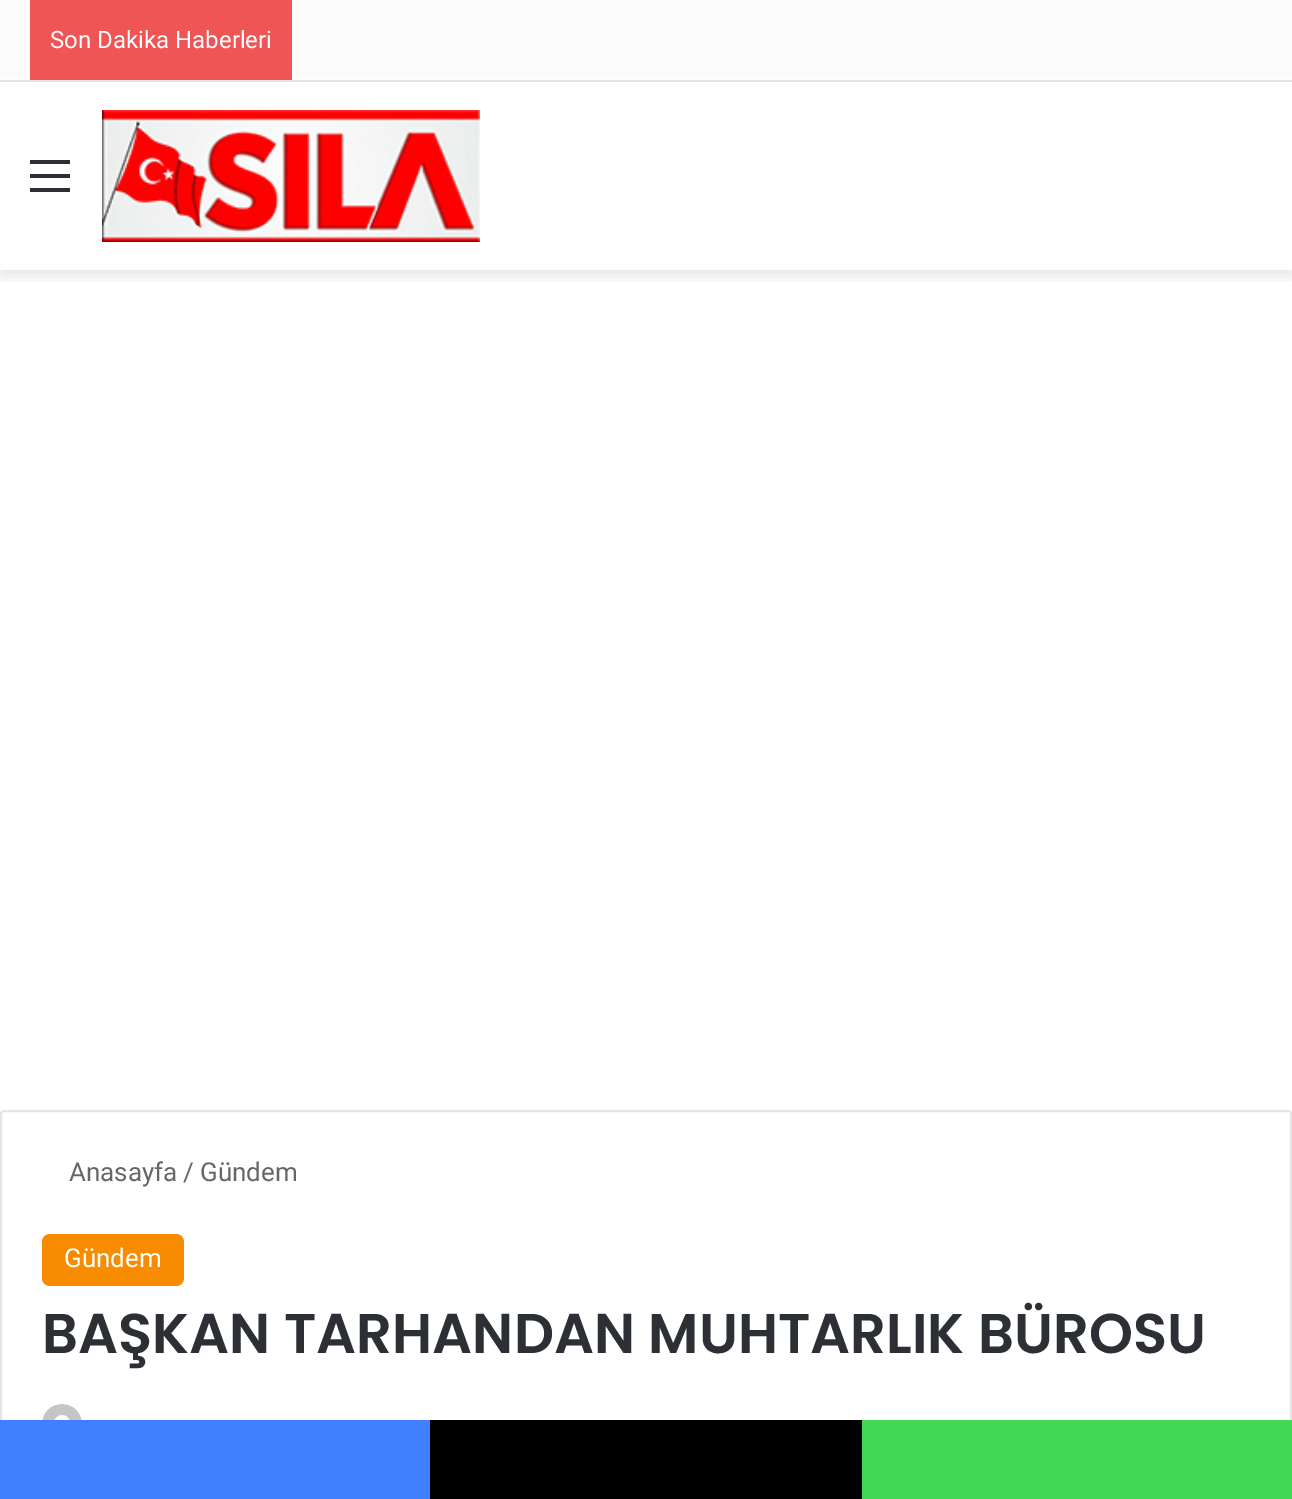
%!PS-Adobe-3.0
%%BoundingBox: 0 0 1292 1499
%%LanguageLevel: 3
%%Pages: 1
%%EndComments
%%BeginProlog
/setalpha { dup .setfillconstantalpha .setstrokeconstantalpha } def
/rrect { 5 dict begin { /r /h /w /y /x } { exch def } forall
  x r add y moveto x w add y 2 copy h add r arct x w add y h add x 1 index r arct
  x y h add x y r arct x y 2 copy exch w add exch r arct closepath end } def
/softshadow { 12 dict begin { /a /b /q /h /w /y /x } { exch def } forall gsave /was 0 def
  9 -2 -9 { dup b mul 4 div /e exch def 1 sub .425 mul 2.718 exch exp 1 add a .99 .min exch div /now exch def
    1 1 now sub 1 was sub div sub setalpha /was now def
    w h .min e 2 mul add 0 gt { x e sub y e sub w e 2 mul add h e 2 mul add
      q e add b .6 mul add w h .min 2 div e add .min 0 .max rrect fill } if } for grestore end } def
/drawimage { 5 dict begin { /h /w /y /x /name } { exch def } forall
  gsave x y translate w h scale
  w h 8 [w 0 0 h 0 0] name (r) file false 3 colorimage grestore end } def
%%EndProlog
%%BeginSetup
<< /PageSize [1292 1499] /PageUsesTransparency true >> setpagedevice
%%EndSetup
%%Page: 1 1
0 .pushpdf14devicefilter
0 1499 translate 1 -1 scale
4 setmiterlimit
1 setgray
0 0 1292 1499 rectfill
gsave
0 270 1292 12 rectclip
0 setgray
0 88 1292 188 0 7 0.1 softshadow
grestore
0.984 setgray
0 0 1292 79 rectfill
0.886 setgray
0 80 1292 2 rectfill
0.941 0.333 0.333 setrgbcolor
30 0 262 80 rectfill
0.173 0.184 0.204 setrgbcolor
30 174 40 4 rectfill
30 160 40 4 rectfill
30 188 40 4 rectfill
(images/1.raw) 102 110 378 132 drawimage
0.898 setgray
2 setlinewidth
1 1111 1290 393 3 rrect stroke
0.973 0.549 0 setrgbcolor
42 1234 142 52 8 rrect fill
(images/2.raw) 42 1404 40 16 drawimage
0.251 0.502 1 setrgbcolor
0 1420 430 79 rectfill
0 setgray
430 1420 432 79 rectfill
0.263 0.847 0.329 setrgbcolor
862 1420 430 79 rectfill
/Roboto-Regular [24 0 0 -24 0 0] selectfont
1 setgray
50 48 moveto (Son Dakika Haberleri) show
/Roboto-Regular [26 0 0 -26 0 0] selectfont
0.4 setgray
69 1181 moveto (Anasayfa) show
183 1181 moveto (/) show
200 1181 moveto (Gündem) show
1 setgray
64 1267 moveto (Gündem) show
/Poppins-SemiBold [56 0 0 -56 0 0] selectfont
0.173 0.184 0.204 setrgbcolor
42 1353 moveto (BAŞKAN TARHANDAN MUHTARLIK BÜROSU) show
.poppdf14devicefilter showpage
%%EOF
